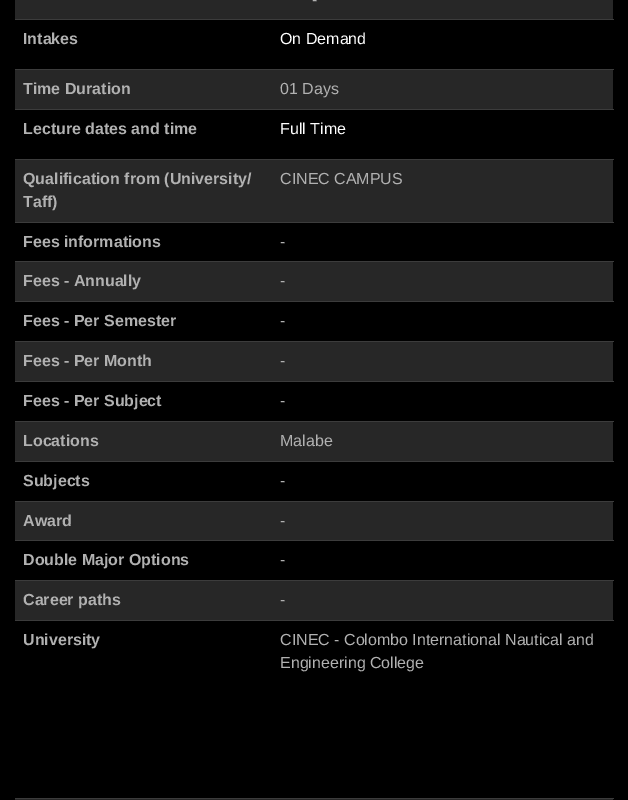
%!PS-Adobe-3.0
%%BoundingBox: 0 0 628 800
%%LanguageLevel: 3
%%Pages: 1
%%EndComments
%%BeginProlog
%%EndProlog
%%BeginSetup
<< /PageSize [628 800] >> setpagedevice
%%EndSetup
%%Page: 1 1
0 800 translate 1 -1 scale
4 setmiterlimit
0 setgray
0 0 628 800 rectfill
0.153 setgray
15 0 598 19 rectfill
0.235 setgray
15 19 599 1 rectfill
0.153 setgray
15 70 598 39 rectfill
0.235 setgray
15 69 599 1 rectfill
15 109 599 1 rectfill
0.153 setgray
15 160 598 62 rectfill
0.235 setgray
15 159 599 1 rectfill
15 222 599 1 rectfill
0.153 setgray
15 262 598 39 rectfill
0.235 setgray
15 261 599 1 rectfill
15 301 599 1 rectfill
0.153 setgray
15 342 598 39 rectfill
0.235 setgray
15 341 599 1 rectfill
15 381 599 1 rectfill
0.153 setgray
15 422 598 39 rectfill
0.235 setgray
15 421 599 1 rectfill
15 461 599 1 rectfill
0.153 setgray
15 502 598 38 rectfill
0.235 setgray
15 501 599 1 rectfill
15 540 599 1 rectfill
0.153 setgray
15 581 598 39 rectfill
0.235 setgray
15 580 599 1 rectfill
15 620 599 1 rectfill
0.153 setgray
15 799 598 1 rectfill
0.235 setgray
15 798 599 1 rectfill
/LiberationSans-Regular [16 0 0 -16 0 0] selectfont
0.694 setgray
312 5 moveto (-) show
/LiberationSans-Bold [16 0 0 -16 0 0] selectfont
23 44 moveto (Intakes) show
/LiberationSans-Regular [16 0 0 -16 0 0] selectfont
1 setgray
280 44 moveto (On Demand) show
/LiberationSans-Bold [16 0 0 -16 0 0] selectfont
0.694 setgray
23 94 moveto (Time Duration) show
/LiberationSans-Regular [16 0 0 -16 0 0] selectfont
280 94 moveto (01 Days) show
/LiberationSans-Bold [16 0 0 -16 0 0] selectfont
23 134 moveto (Lecture dates and time) show
/LiberationSans-Regular [16 0 0 -16 0 0] selectfont
1 setgray
280 134 moveto (Full Time) show
/LiberationSans-Bold [16 0 0 -16 0 0] selectfont
0.694 setgray
23 184 moveto (Qualification from \(University/) show
23 207 moveto (Taff\)) show
/LiberationSans-Regular [16 0 0 -16 0 0] selectfont
280 184 moveto (CINEC CAMPUS) show
/LiberationSans-Bold [16 0 0 -16 0 0] selectfont
23 247 moveto (Fees informations) show
/LiberationSans-Regular [16 0 0 -16 0 0] selectfont
280 247 moveto (-) show
/LiberationSans-Bold [16 0 0 -16 0 0] selectfont
23 286 moveto (Fees - Annually) show
/LiberationSans-Regular [16 0 0 -16 0 0] selectfont
280 286 moveto (-) show
/LiberationSans-Bold [16 0 0 -16 0 0] selectfont
23 326 moveto (Fees - Per Semester) show
/LiberationSans-Regular [16 0 0 -16 0 0] selectfont
280 326 moveto (-) show
/LiberationSans-Bold [16 0 0 -16 0 0] selectfont
23 366 moveto (Fees - Per Month) show
/LiberationSans-Regular [16 0 0 -16 0 0] selectfont
280 366 moveto (-) show
/LiberationSans-Bold [16 0 0 -16 0 0] selectfont
23 406 moveto (Fees - Per Subject) show
/LiberationSans-Regular [16 0 0 -16 0 0] selectfont
280 406 moveto (-) show
/LiberationSans-Bold [16 0 0 -16 0 0] selectfont
23 446 moveto (Locations) show
/LiberationSans-Regular [16 0 0 -16 0 0] selectfont
280 446 moveto (Malabe) show
/LiberationSans-Bold [16 0 0 -16 0 0] selectfont
23 486 moveto (Subjects) show
/LiberationSans-Regular [16 0 0 -16 0 0] selectfont
280 486 moveto (-) show
/LiberationSans-Bold [16 0 0 -16 0 0] selectfont
23 526 moveto (Award) show
/LiberationSans-Regular [16 0 0 -16 0 0] selectfont
280 526 moveto (-) show
/LiberationSans-Bold [16 0 0 -16 0 0] selectfont
23 565 moveto (Double Major Options) show
/LiberationSans-Regular [16 0 0 -16 0 0] selectfont
280 565 moveto (-) show
/LiberationSans-Bold [16 0 0 -16 0 0] selectfont
23 605 moveto (Career paths) show
/LiberationSans-Regular [16 0 0 -16 0 0] selectfont
280 605 moveto (-) show
/LiberationSans-Bold [16 0 0 -16 0 0] selectfont
23 645 moveto (University) show
/LiberationSans-Regular [16 0 0 -16 0 0] selectfont
280 645 moveto (CINEC - Colombo International Nautical and) show
280 668 moveto (Engineering College) show
showpage
%%EOF
